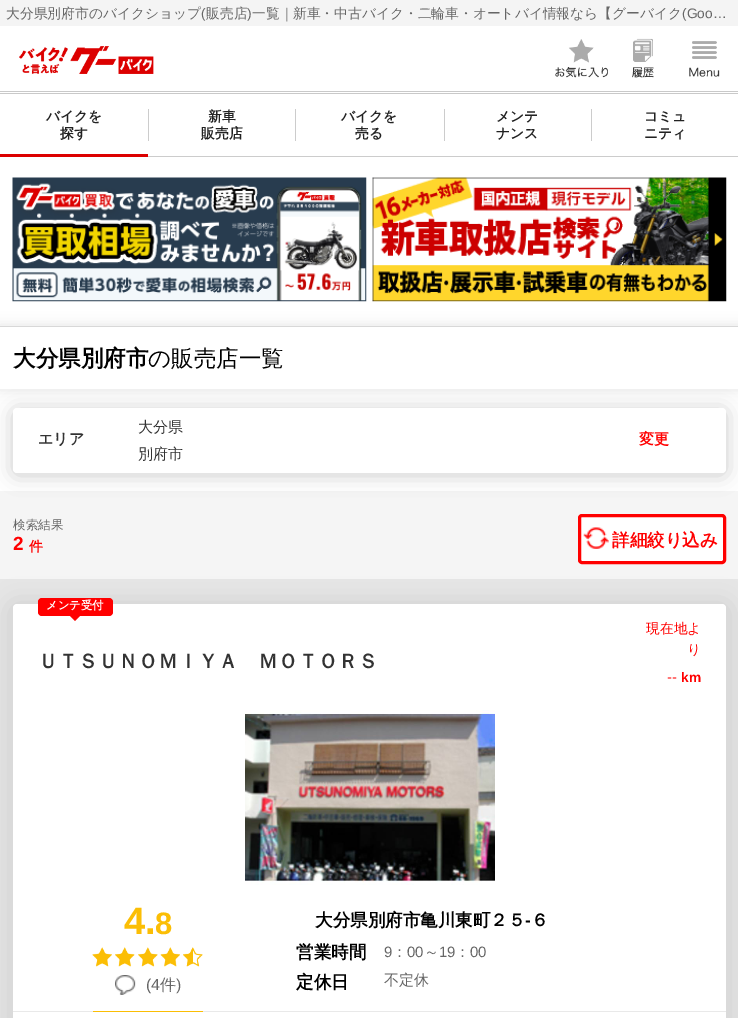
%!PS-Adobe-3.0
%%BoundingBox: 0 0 738 1018
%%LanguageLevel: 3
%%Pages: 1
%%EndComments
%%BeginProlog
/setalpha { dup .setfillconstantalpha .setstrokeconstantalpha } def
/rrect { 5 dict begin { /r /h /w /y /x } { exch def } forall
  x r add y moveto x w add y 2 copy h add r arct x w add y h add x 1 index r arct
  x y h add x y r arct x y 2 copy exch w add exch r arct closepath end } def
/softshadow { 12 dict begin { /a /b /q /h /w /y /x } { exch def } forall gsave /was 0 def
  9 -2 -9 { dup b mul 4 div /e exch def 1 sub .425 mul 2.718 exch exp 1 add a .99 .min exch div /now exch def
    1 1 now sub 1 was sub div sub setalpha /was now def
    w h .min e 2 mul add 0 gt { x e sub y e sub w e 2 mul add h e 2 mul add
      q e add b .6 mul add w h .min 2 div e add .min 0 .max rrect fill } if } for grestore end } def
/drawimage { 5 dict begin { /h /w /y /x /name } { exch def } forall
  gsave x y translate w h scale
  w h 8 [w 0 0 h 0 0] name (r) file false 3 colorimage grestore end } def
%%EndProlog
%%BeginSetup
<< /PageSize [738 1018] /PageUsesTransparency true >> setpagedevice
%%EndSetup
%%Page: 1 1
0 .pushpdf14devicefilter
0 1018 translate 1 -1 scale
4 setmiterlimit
1 setgray
0 0 738 1018 rectfill
0.957 setgray
0 0 738 26 rectfill
0.788 setgray
0 91 738 1 rectfill
(images/1.raw) 19 46 135 28 drawimage
(images/2.raw) 555 39 53 39 drawimage
(images/3.raw) 632 38 22 40 drawimage
(images/4.raw) 689 41 31 36 drawimage
0 93 738 1 rectfill
0.8 setgray
148 156 590 1 rectfill
0.863 0 0 setrgbcolor
0 154 148 3 rectfill
0.8 setgray
148 109 1 32 rectfill
295 109 1 32 rectfill
444 109 1 32 rectfill
591 109 1 32 rectfill
(images/5.raw) 12 177 355 125 drawimage
(images/6.raw) 372 177 355 125 drawimage
0.961 setgray
0 491 738 88 rectfill
0 setgray
13 410 713 65 4 10 0.2 softshadow
1 setgray
13 408 713 65 4 rrect fill
0 setgray
-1 325 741 65 0 6 0.1 softshadow
1 setgray
0 327 738 62 rectfill
0.847 setgray
0 326 738 1 rectfill
1 setgray
579.5 515.5 145 47 2.5 rrect gsave fill grestore
1 0 0 setrgbcolor
3 setlinewidth
stroke
(images/7.raw) 583 527 26 22 drawimage
0.902 setgray
0 579 738 439 rectfill
0 setgray
10 604 719 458 6 12.5 0.1 softshadow
1 setgray
13 604 713 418 4 rrect fill
1 0 0 setrgbcolor
38 598 75 18 4 rrect fill
newpath 69 615 moveto 81 615 lineto 75 621 lineto closepath fill
(images/8.raw) 245 710 250 175 drawimage
0.914 setgray
13 1011 713 1 rectfill
(images/9.raw) 92 947 111 20 drawimage
(images/10.raw) 115 975 21 20 drawimage
0.984 0.745 0.02 setrgbcolor
93 1011 110 1 rectfill
/WenQuanYiZenHei-Medium [13.75 0 0 -13.75 0 0] selectfont
0.4 setgray
6 18 moveto (大分県別府市のバイクショップ) show
/LiberationSans-Regular [13.75 0 0 -13.75 0 0] selectfont
201 18 moveto (\() show
/WenQuanYiZenHei-Medium [13.75 0 0 -13.75 0 0] selectfont
206 18 moveto (販売店) show
/LiberationSans-Regular [13.75 0 0 -13.75 0 0] selectfont
247 18 moveto (\)) show
/WenQuanYiZenHei-Medium [13.75 0 0 -13.75 0 0] selectfont
252 18 moveto (一覧｜新車・中古バイク・二輪車・オートバイ情報なら【グーバイク) show
/LiberationSans-Regular [13.75 0 0 -13.75 0 0] selectfont
682 18 moveto (\(Goo…) show
/WenQuanYiZenHei-Bold [13.75 0 0 -13.75 0 0] selectfont
0.133 setgray
46 121 moveto (バイクを) show
60 138 moveto (探す) show
208 121 moveto (新車) show
201 138 moveto (販売店) show
341 121 moveto (バイクを) show
355 138 moveto (売る) show
496 121 moveto (メンテ) show
496 138 moveto (ナンス) show
644 121 moveto (コミュ) show
644 138 moveto (ニティ) show
/WenQuanYiZenHei-Bold [22.5 0 0 -22.5 0 0] selectfont
0 setgray
13 366 moveto (大分県別府市) show
/WenQuanYiZenHei-Medium [22.5 0 0 -22.5 0 0] selectfont
148 366 moveto (の販売店一覧) show
/WenQuanYiZenHei-Bold [15 0 0 -15 0 0] selectfont
0.2 setgray
38 444 moveto (エリア) show
/WenQuanYiZenHei-Medium [15 0 0 -15 0 0] selectfont
138 432 moveto (大分県) show
138 459 moveto (別府市) show
/WenQuanYiZenHei-Bold [15 0 0 -15 0 0] selectfont
1 0 0 setrgbcolor
639 444 moveto (変更) show
/WenQuanYiZenHei-Medium [12.5 0 0 -12.5 0 0] selectfont
0.4 setgray
13 529 moveto (検索結果) show
/LiberationSans-Bold [19 0 0 -19 0 0] selectfont
1 0 0 setrgbcolor
13 550 moveto (2) show
/WenQuanYiZenHei-Bold [13.75 0 0 -13.75 0 0] selectfont
29 551 moveto (件) show
/WenQuanYiZenHei-Bold [17.5 0 0 -17.5 0 0] selectfont
612 546 moveto (詳細絞り込み) show
/WenQuanYiZenHei-Bold [11.25 0 0 -11.25 0 0] selectfont
1 setgray
46 609 moveto (メンテ受付) show
/WenQuanYiZenHei-Bold [20 0 0 -20 0 0] selectfont
0.2 setgray
38 668 moveto (ＵＴＳＵＮＯＭＩＹＡ　ＭＯＴＯＲＳ) show
/WenQuanYiZenHei-Medium [13.75 0 0 -13.75 0 0] selectfont
1 0 0 setrgbcolor
646 633 moveto (現在地よ) show
687 654 moveto (り) show
/LiberationSans-Regular [15 0 0 -15 0 0] selectfont
667 682 moveto (--) show
/LiberationSans-Bold [13.75 0 0 -13.75 0 0] selectfont
681 682 moveto (km) show
/LiberationSans-Bold [38 0 0 -38 0 0] selectfont
0.984 0.745 0.02 setrgbcolor
124 934 moveto (4.) show
/LiberationSans-Bold [31 0 0 -31 0 0] selectfont
155 934 moveto (8) show
/LiberationSans-Regular [16 0 0 -16 0 0] selectfont
0.4 setgray
146 990 moveto (\(4) show
/WenQuanYiZenHei-Medium [16 0 0 -16 0 0] selectfont
160 990 moveto (件) show
/LiberationSans-Regular [16 0 0 -16 0 0] selectfont
176 990 moveto (\)) show
/WenQuanYiZenHei-Bold [17.5 0 0 -17.5 0 0] selectfont
0 setgray
315 926 moveto (大分県別府市亀川東町２５) show
/LiberationSans-Bold [17.5 0 0 -17.5 0 0] selectfont
525 926 moveto (-) show
/WenQuanYiZenHei-Bold [17.5 0 0 -17.5 0 0] selectfont
531 926 moveto (６) show
296 958 moveto (営業時間) show
/LiberationSans-Regular [15 0 0 -15 0 0] selectfont
0.4 setgray
384 957 moveto (9) show
/WenQuanYiZenHei-Medium [15 0 0 -15 0 0] selectfont
392 957 moveto (：) show
/LiberationSans-Regular [15 0 0 -15 0 0] selectfont
407 957 moveto (00) show
/WenQuanYiZenHei-Medium [15 0 0 -15 0 0] selectfont
424 957 moveto (～) show
/LiberationSans-Regular [15 0 0 -15 0 0] selectfont
439 957 moveto (19) show
/WenQuanYiZenHei-Medium [15 0 0 -15 0 0] selectfont
455 957 moveto (：) show
/LiberationSans-Regular [15 0 0 -15 0 0] selectfont
470 957 moveto (00) show
/WenQuanYiZenHei-Bold [17.5 0 0 -17.5 0 0] selectfont
0 setgray
296 988 moveto (定休日) show
/WenQuanYiZenHei-Medium [15 0 0 -15 0 0] selectfont
0.4 setgray
384 985 moveto (不定休) show
.poppdf14devicefilter showpage
%%EOF
